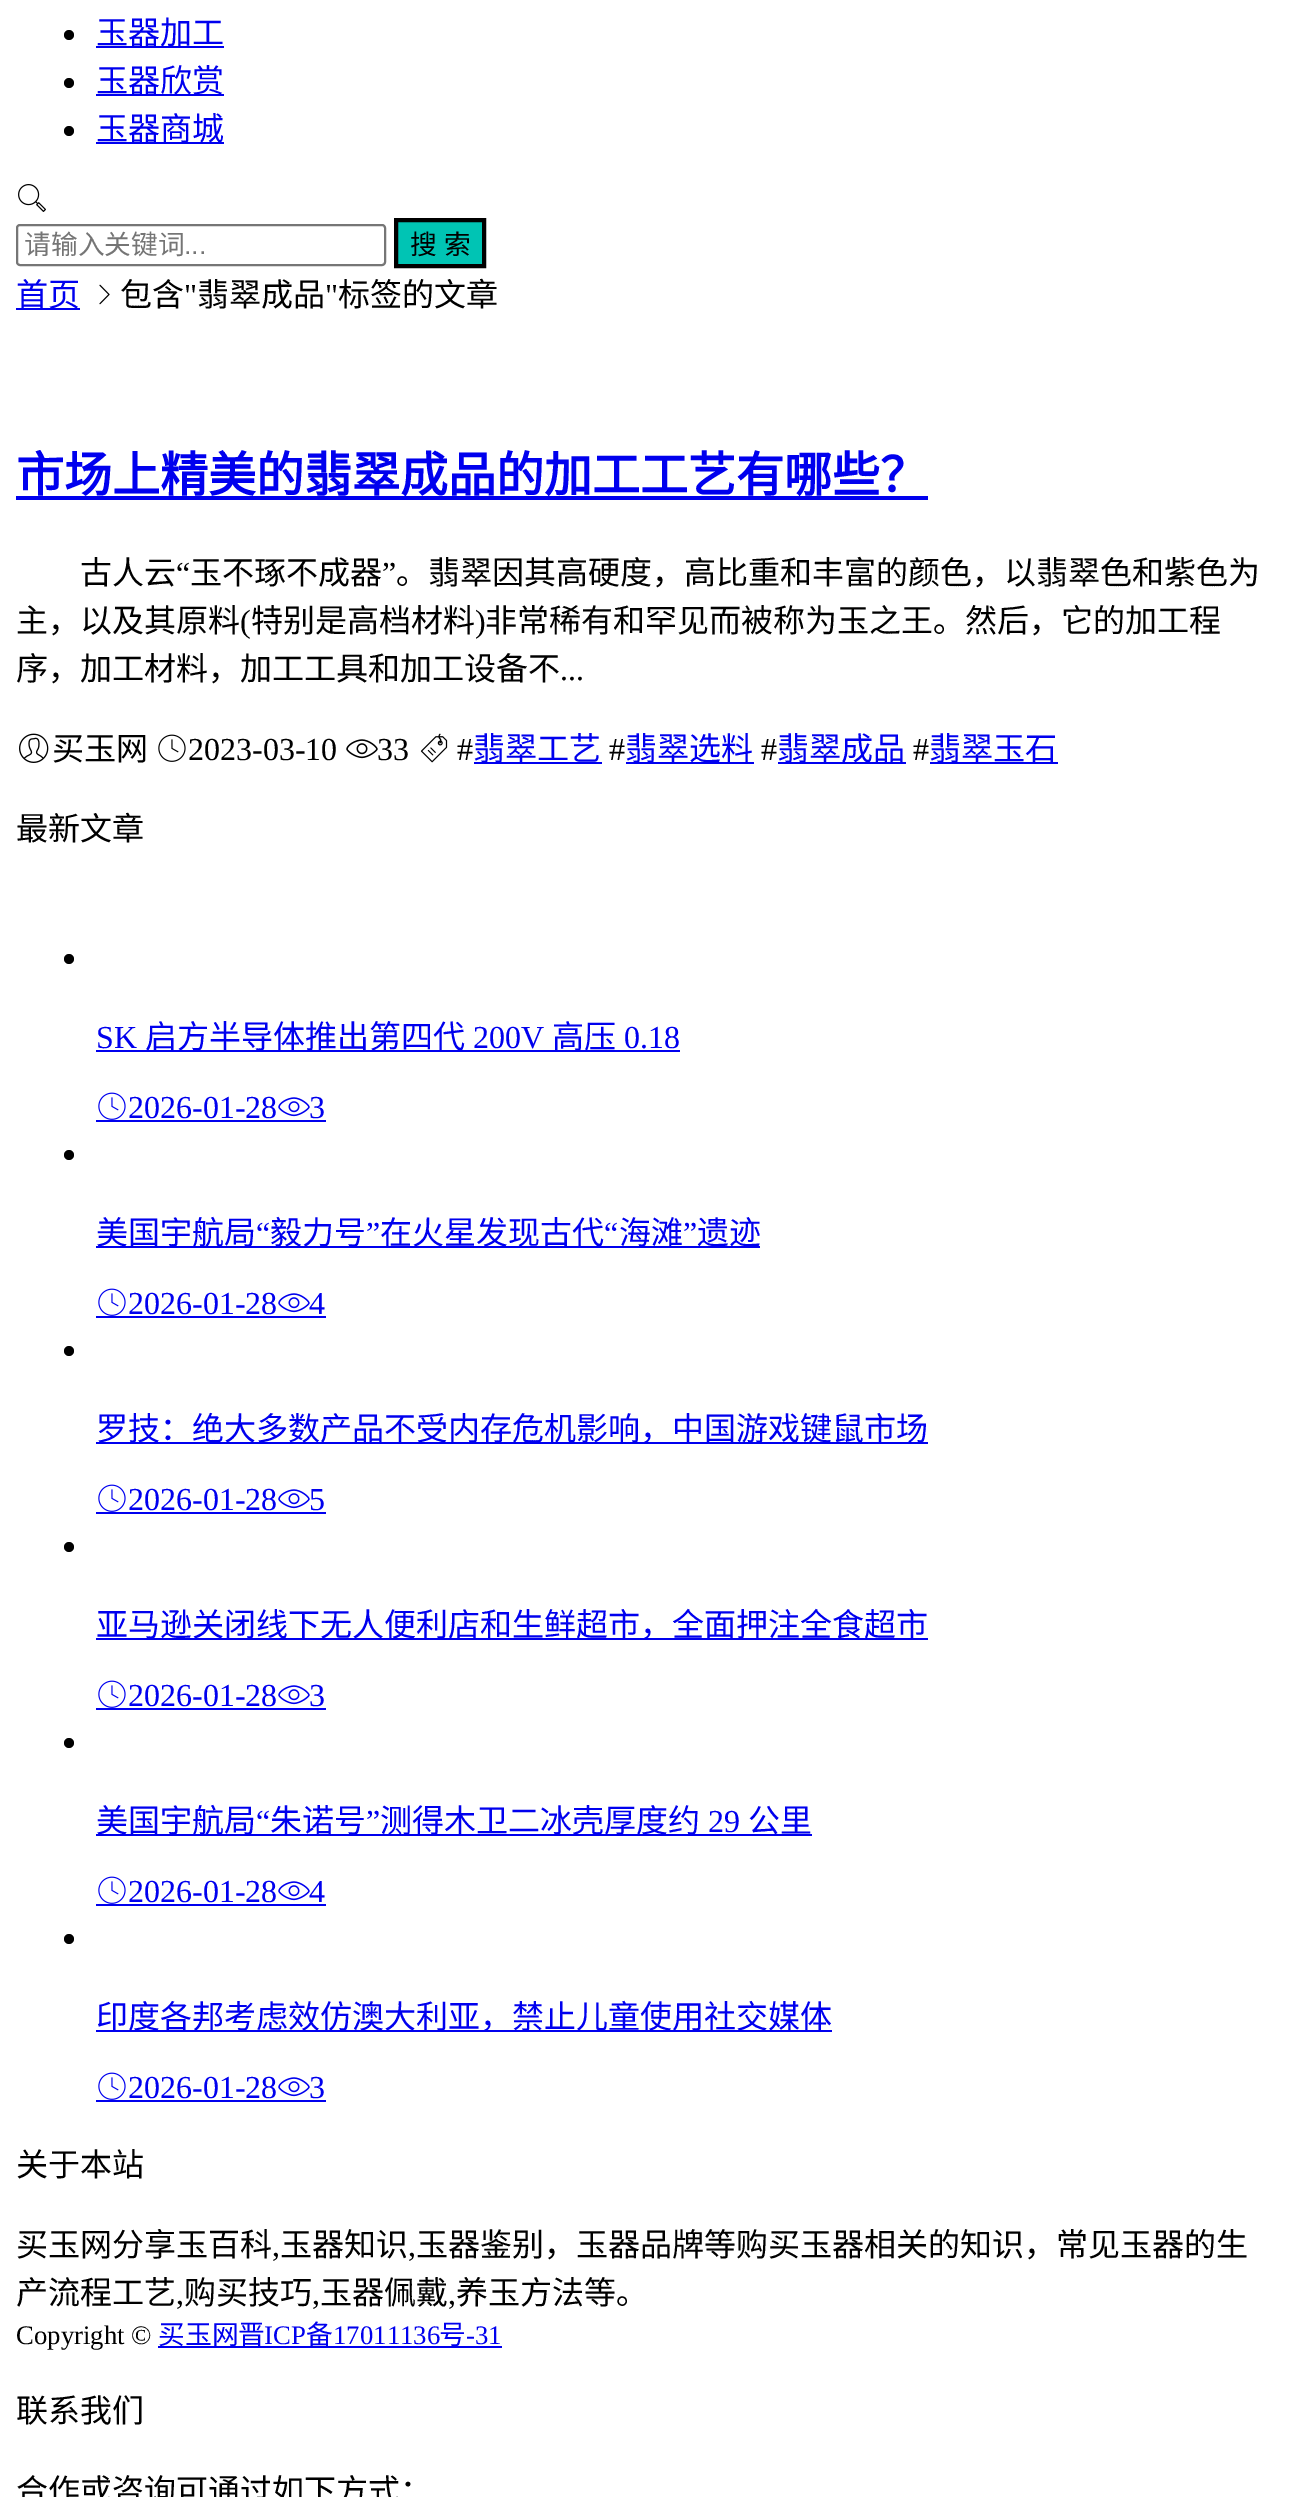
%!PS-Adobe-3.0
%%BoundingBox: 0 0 1293 2497
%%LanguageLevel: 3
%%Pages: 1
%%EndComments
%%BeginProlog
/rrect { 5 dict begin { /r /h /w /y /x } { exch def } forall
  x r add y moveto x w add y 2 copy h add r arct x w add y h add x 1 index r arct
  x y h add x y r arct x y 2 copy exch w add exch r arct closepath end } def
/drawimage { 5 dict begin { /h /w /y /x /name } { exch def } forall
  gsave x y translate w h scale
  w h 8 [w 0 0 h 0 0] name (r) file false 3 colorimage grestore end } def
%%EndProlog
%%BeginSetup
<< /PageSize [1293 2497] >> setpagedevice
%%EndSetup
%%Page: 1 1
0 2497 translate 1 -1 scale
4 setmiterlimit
1 setgray
0 0 1293 2497 rectfill
0 setgray
newpath 69 35 5 0 360 arc closepath fill
0 0 0.933 setrgbcolor
96 46 128 2 rectfill
0 setgray
newpath 69 83 5 0 360 arc closepath fill
0 0 0.933 setrgbcolor
96 94 128 2 rectfill
0 setgray
newpath 69 131 5 0 360 arc closepath fill
0 0 0.933 setrgbcolor
96 142 128 2 rectfill
(images/1.raw) 18 184 28 28 drawimage
0.463 setgray
2 setlinewidth
17 225 368 40 3 rrect stroke
0 0.769 0.706 setrgbcolor
newpath 396 220 moveto 484 220 lineto 484 266 lineto 396 266 lineto closepath gsave fill grestore
0 setgray
4 setlinewidth
stroke
0 0 0.933 setrgbcolor
16 308 64 2 rectfill
(images/2.raw) 99 284 11 21 drawimage
16 496 912 4 rectfill
(images/3.raw) 19 733 30 30 drawimage
(images/4.raw) 158 734 28 28 drawimage
(images/5.raw) 346 739 32 20 drawimage
(images/6.raw) 420 733 28 30 drawimage
474 762 128 2 rectfill
626 762 128 2 rectfill
778 762 128 2 rectfill
930 762 128 2 rectfill
0 setgray
newpath 69 959 5 0 360 arc closepath fill
0 0 0.933 setrgbcolor
96 1050 584 2 rectfill
(images/7.raw) 98 1092 28 28 drawimage
96 1120 230 2 rectfill
(images/8.raw) 278 1097 32 20 drawimage
0 setgray
newpath 69 1155 5 0 360 arc closepath fill
0 0 0.933 setrgbcolor
96 1246 664 2 rectfill
(images/7.raw) 98 1288 28 28 drawimage
96 1316 230 2 rectfill
(images/8.raw) 278 1293 32 20 drawimage
0 setgray
newpath 69 1351 5 0 360 arc closepath fill
0 0 0.933 setrgbcolor
96 1442 832 2 rectfill
(images/7.raw) 98 1484 28 28 drawimage
96 1512 230 2 rectfill
(images/8.raw) 278 1489 32 20 drawimage
0 setgray
newpath 69 1547 5 0 360 arc closepath fill
0 0 0.933 setrgbcolor
96 1638 832 2 rectfill
(images/7.raw) 98 1680 28 28 drawimage
96 1708 230 2 rectfill
(images/8.raw) 278 1685 32 20 drawimage
0 setgray
newpath 69 1743 5 0 360 arc closepath fill
0 0 0.933 setrgbcolor
96 1834 716 2 rectfill
(images/7.raw) 98 1876 28 28 drawimage
96 1904 230 2 rectfill
(images/8.raw) 278 1881 32 20 drawimage
0 setgray
newpath 69 1939 5 0 360 arc closepath fill
0 0 0.933 setrgbcolor
96 2030 736 2 rectfill
(images/7.raw) 98 2072 28 28 drawimage
96 2100 230 2 rectfill
(images/8.raw) 278 2077 32 20 drawimage
158 2346 344 2 rectfill
/NotoSansCJKSC-Regular [32 0 0 -32 0 0] selectfont
96 44 moveto (玉器加工) show
96 92 moveto (玉器欣赏) show
96 140 moveto (玉器商城) show
/NotoSansCJKSC-Regular [26.75 0 0 -26.75 0 0] selectfont
0.459 setgray
24 254 moveto (请输入关键词) show
/LiberationSans-Regular [26.75 0 0 -26.75 0 0] selectfont
184 254 moveto (...) show
/NotoSansCJKSC-Regular [26.75 0 0 -26.75 0 0] selectfont
0 setgray
410 254 moveto 1 0 32 (搜 索) widthshow
/NotoSansCJKSC-Regular [32 0 0 -32 0 0] selectfont
0 0 0.933 setrgbcolor
16 306 moveto (首页) show
0 setgray
120 306 moveto (包含) show
/LiberationSerif-Regular [32 0 0 -32 0 0] selectfont
184 306 moveto (") show
/NotoSansCJKSC-Regular [32 0 0 -32 0 0] selectfont
197 306 moveto (翡翠成品) show
/LiberationSerif-Regular [32 0 0 -32 0 0] selectfont
325 306 moveto (") show
/NotoSansCJKSC-Regular [32 0 0 -32 0 0] selectfont
338 306 moveto (标签的文章) show
/NotoSansCJKSC-Bold [48 0 0 -48 0 0] selectfont
0 0 0.933 setrgbcolor
16 492 moveto (市场上精美的翡翠成品的加工工艺有哪些？) show
/NotoSansCJKSC-Regular [32 0 0 -32 0 0] selectfont
0 setgray
80 584 moveto (古人云) show
/LiberationSerif-Regular [32 0 0 -32 0 0] selectfont
176 584 moveto (“) show
/NotoSansCJKSC-Regular [32 0 0 -32 0 0] selectfont
190 584 moveto (玉不琢不成器) show
/LiberationSerif-Regular [32 0 0 -32 0 0] selectfont
382 584 moveto (”) show
/NotoSansCJKSC-Regular [32 0 0 -32 0 0] selectfont
396 584 moveto (。翡翠因其高硬度，高比重和丰富的颜色，以翡翠色和紫色为) show
16 632 moveto (主，以及其原料) show
/LiberationSerif-Regular [32 0 0 -32 0 0] selectfont
240 632 moveto (\() show
/NotoSansCJKSC-Regular [32 0 0 -32 0 0] selectfont
251 632 moveto (特别是高档材料) show
/LiberationSerif-Regular [32 0 0 -32 0 0] selectfont
475 632 moveto (\)) show
/NotoSansCJKSC-Regular [32 0 0 -32 0 0] selectfont
485 632 moveto (非常稀有和罕见而被称为玉之王。然后，它的加工程) show
16 680 moveto (序，加工材料，加工工具和加工设备不) show
/LiberationSerif-Regular [32 0 0 -32 0 0] selectfont
560 680 moveto (...) show
/NotoSansCJKSC-Regular [32 0 0 -32 0 0] selectfont
52 760 moveto (买玉网) show
/LiberationSerif-Regular [32 0 0 -32 0 0] selectfont
188 760 moveto (2023-03-10) show
377 760 moveto (33) show
457 760 moveto (#) show
/NotoSansCJKSC-Regular [32 0 0 -32 0 0] selectfont
0 0 0.933 setrgbcolor
473 760 moveto (翡翠工艺) show
/LiberationSerif-Regular [32 0 0 -32 0 0] selectfont
0 setgray
609 760 moveto (#) show
/NotoSansCJKSC-Regular [32 0 0 -32 0 0] selectfont
0 0 0.933 setrgbcolor
625 760 moveto (翡翠选料) show
/LiberationSerif-Regular [32 0 0 -32 0 0] selectfont
0 setgray
761 760 moveto (#) show
/NotoSansCJKSC-Regular [32 0 0 -32 0 0] selectfont
0 0 0.933 setrgbcolor
777 760 moveto (翡翠成品) show
/LiberationSerif-Regular [32 0 0 -32 0 0] selectfont
0 setgray
913 760 moveto (#) show
/NotoSansCJKSC-Regular [32 0 0 -32 0 0] selectfont
0 0 0.933 setrgbcolor
929 760 moveto (翡翠玉石) show
0 setgray
16 840 moveto (最新文章) show
/LiberationSerif-Regular [32 0 0 -32 0 0] selectfont
0 0 0.933 setrgbcolor
96 1048 moveto (SK) show
/NotoSansCJKSC-Regular [32 0 0 -32 0 0] selectfont
145 1048 moveto (启方半导体推出第四代) show
/LiberationSerif-Regular [32 0 0 -32 0 0] selectfont
473 1048 moveto (200V) show
/NotoSansCJKSC-Regular [32 0 0 -32 0 0] selectfont
552 1048 moveto (高压) show
/LiberationSerif-Regular [32 0 0 -32 0 0] selectfont
624 1048 moveto (0.18) show
128 1118 moveto (2026-01-28) show
309 1118 moveto (3) show
/NotoSansCJKSC-Regular [32 0 0 -32 0 0] selectfont
96 1244 moveto (美国宇航局) show
/LiberationSerif-Regular [32 0 0 -32 0 0] selectfont
256 1244 moveto (“) show
/NotoSansCJKSC-Regular [32 0 0 -32 0 0] selectfont
270 1244 moveto (毅力号) show
/LiberationSerif-Regular [32 0 0 -32 0 0] selectfont
366 1244 moveto (”) show
/NotoSansCJKSC-Regular [32 0 0 -32 0 0] selectfont
380 1244 moveto (在火星发现古代) show
/LiberationSerif-Regular [32 0 0 -32 0 0] selectfont
604 1244 moveto (“) show
/NotoSansCJKSC-Regular [32 0 0 -32 0 0] selectfont
619 1244 moveto (海滩) show
/LiberationSerif-Regular [32 0 0 -32 0 0] selectfont
683 1244 moveto (”) show
/NotoSansCJKSC-Regular [32 0 0 -32 0 0] selectfont
697 1244 moveto (遗迹) show
/LiberationSerif-Regular [32 0 0 -32 0 0] selectfont
128 1314 moveto (2026-01-28) show
309 1314 moveto (4) show
/NotoSansCJKSC-Regular [32 0 0 -32 0 0] selectfont
96 1440 moveto (罗技：绝大多数产品不受内存危机影响，中国游戏键鼠市场) show
/LiberationSerif-Regular [32 0 0 -32 0 0] selectfont
128 1510 moveto (2026-01-28) show
309 1510 moveto (5) show
/NotoSansCJKSC-Regular [32 0 0 -32 0 0] selectfont
96 1636 moveto (亚马逊关闭线下无人便利店和生鲜超市，全面押注全食超市) show
/LiberationSerif-Regular [32 0 0 -32 0 0] selectfont
128 1706 moveto (2026-01-28) show
309 1706 moveto (3) show
/NotoSansCJKSC-Regular [32 0 0 -32 0 0] selectfont
96 1832 moveto (美国宇航局) show
/LiberationSerif-Regular [32 0 0 -32 0 0] selectfont
256 1832 moveto (“) show
/NotoSansCJKSC-Regular [32 0 0 -32 0 0] selectfont
270 1832 moveto (朱诺号) show
/LiberationSerif-Regular [32 0 0 -32 0 0] selectfont
366 1832 moveto (”) show
/NotoSansCJKSC-Regular [32 0 0 -32 0 0] selectfont
380 1832 moveto (测得木卫二冰壳厚度约) show
/LiberationSerif-Regular [32 0 0 -32 0 0] selectfont
708 1832 moveto (29) show
/NotoSansCJKSC-Regular [32 0 0 -32 0 0] selectfont
748 1832 moveto (公里) show
/LiberationSerif-Regular [32 0 0 -32 0 0] selectfont
128 1902 moveto (2026-01-28) show
309 1902 moveto (4) show
/NotoSansCJKSC-Regular [32 0 0 -32 0 0] selectfont
96 2028 moveto (印度各邦考虑效仿澳大利亚，禁止儿童使用社交媒体) show
/LiberationSerif-Regular [32 0 0 -32 0 0] selectfont
128 2098 moveto (2026-01-28) show
309 2098 moveto (3) show
/NotoSansCJKSC-Regular [32 0 0 -32 0 0] selectfont
0 setgray
16 2176 moveto (关于本站) show
16 2256 moveto (买玉网分享玉百科) show
/LiberationSerif-Regular [32 0 0 -32 0 0] selectfont
272 2256 moveto (,) show
/NotoSansCJKSC-Regular [32 0 0 -32 0 0] selectfont
280 2256 moveto (玉器知识) show
/LiberationSerif-Regular [32 0 0 -32 0 0] selectfont
408 2256 moveto (,) show
/NotoSansCJKSC-Regular [32 0 0 -32 0 0] selectfont
416 2256 moveto (玉器鉴别，玉器品牌等购买玉器相关的知识，常见玉器的生) show
16 2304 moveto (产流程工艺) show
/LiberationSerif-Regular [32 0 0 -32 0 0] selectfont
176 2304 moveto (,) show
/NotoSansCJKSC-Regular [32 0 0 -32 0 0] selectfont
184 2304 moveto (购买技巧) show
/LiberationSerif-Regular [32 0 0 -32 0 0] selectfont
312 2304 moveto (,) show
/NotoSansCJKSC-Regular [32 0 0 -32 0 0] selectfont
320 2304 moveto (玉器佩戴) show
/LiberationSerif-Regular [32 0 0 -32 0 0] selectfont
448 2304 moveto (,) show
/NotoSansCJKSC-Regular [32 0 0 -32 0 0] selectfont
456 2304 moveto (养玉方法等。) show
/LiberationSerif-Regular [26.75 0 0 -26.75 0 0] selectfont
16 2344 moveto (Copyright ©) show
/NotoSansCJKSC-Regular [26.75 0 0 -26.75 0 0] selectfont
0 0 0.933 setrgbcolor
158 2344 moveto (买玉网晋) show
/LiberationSerif-Regular [26.75 0 0 -26.75 0 0] selectfont
264 2344 moveto (ICP) show
/NotoSansCJKSC-Regular [26.75 0 0 -26.75 0 0] selectfont
306 2344 moveto (备) show
/LiberationSerif-Regular [26.75 0 0 -26.75 0 0] selectfont
333 2344 moveto (17011136) show
/NotoSansCJKSC-Regular [26.75 0 0 -26.75 0 0] selectfont
439 2344 moveto (号) show
/LiberationSerif-Regular [26.75 0 0 -26.75 0 0] selectfont
466 2344 moveto (-31) show
/NotoSansCJKSC-Regular [32 0 0 -32 0 0] selectfont
0 setgray
16 2422 moveto (联系我们) show
16 2502 moveto (合作或咨询可通过如下方式：) show
showpage
%%EOF
